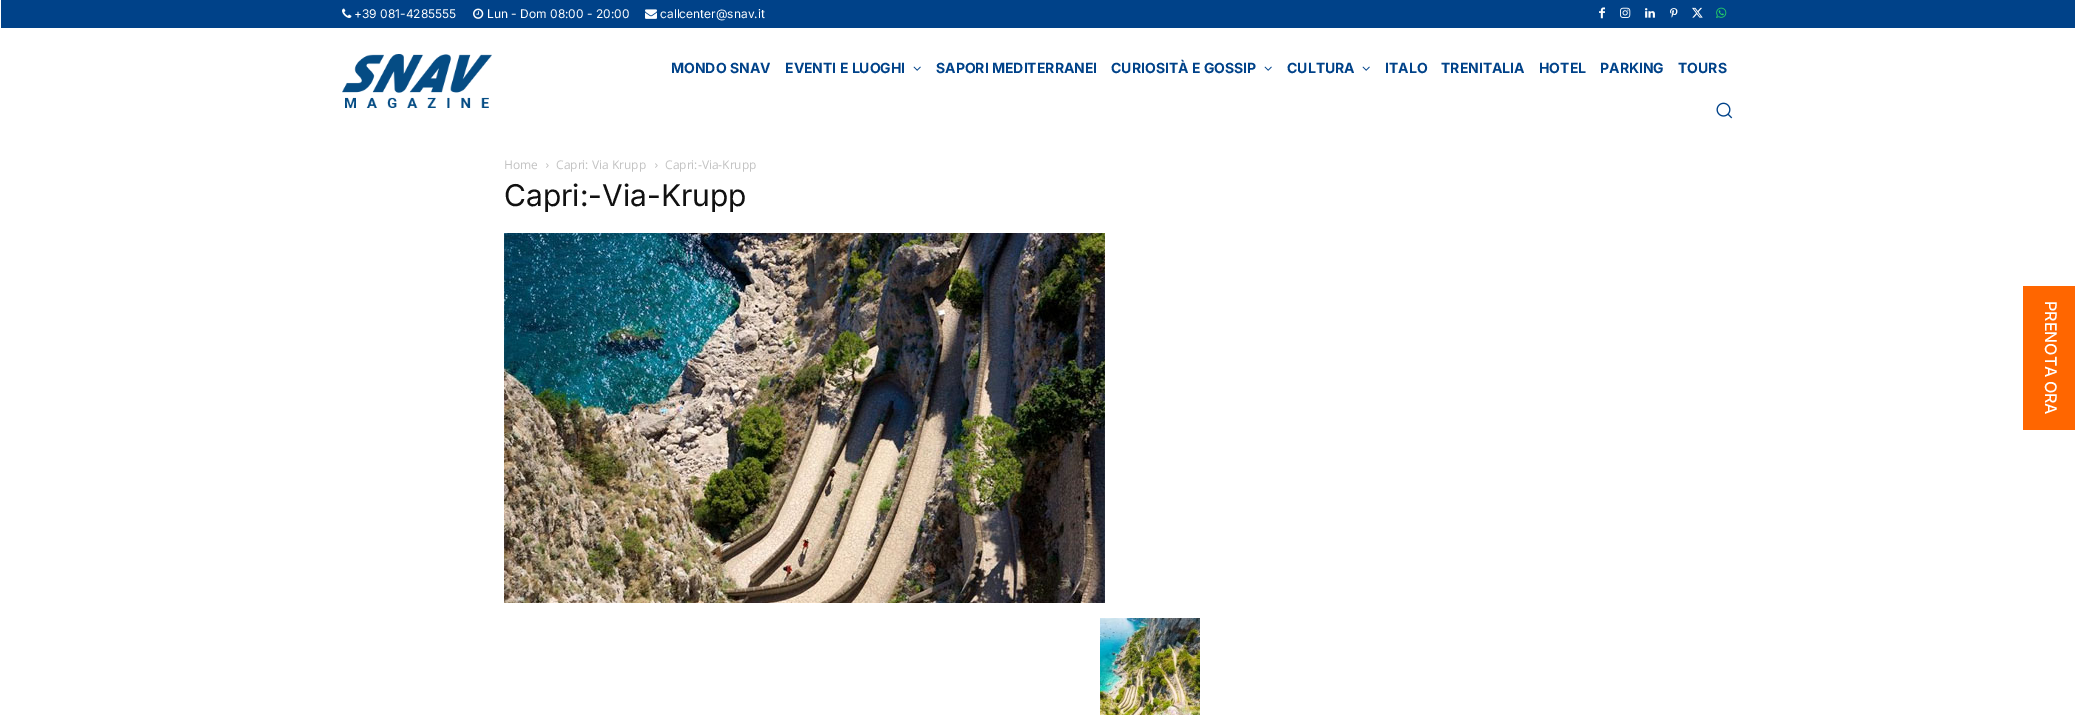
%!PS-Adobe-3.0
%%BoundingBox: 0 0 2075 715
%%LanguageLevel: 3
%%Pages: 1
%%EndComments
%%BeginProlog
/drawimage { 5 dict begin { /h /w /y /x /name } { exch def } forall
  gsave x y translate w h scale
  w h 8 [w 0 0 h 0 0] name (r) file false 3 colorimage grestore end } def
%%EndProlog
%%BeginSetup
<< /PageSize [2075 715] >> setpagedevice
%%EndSetup
%%Page: 1 1
0 715 translate 1 -1 scale
4 setmiterlimit
1 setgray
0 0 2075 715 rectfill
0 0.259 0.537 setrgbcolor
1 0 2074 28 rectfill
(images/1.raw) 342 8 10 10 drawimage
(images/2.raw) 473 8 11 11 drawimage
(images/3.raw) 645 9 12 10 drawimage
(images/4.raw) 1599 7 6 12 drawimage
(images/5.raw) 1620 7 11 11 drawimage
(images/6.raw) 1645 8 10 10 drawimage
(images/7.raw) 1670 8 8 10 drawimage
(images/8.raw) 1692 7 11 11 drawimage
(images/9.raw) 1716 7 11 11 drawimage
(images/10.raw) 342 54 150 54 drawimage
(images/11.raw) 913 66 8 5 drawimage
(images/11.raw) 1264 66 8 5 drawimage
(images/11.raw) 1362 66 8 5 drawimage
(images/12.raw) 1716 102 17 17 drawimage
(images/13.raw) 546 163 3 5 drawimage
(images/13.raw) 655 163 3 5 drawimage
(images/14.raw) 504 233 601 370 drawimage
(images/15.raw) 1100 618 100 97 drawimage
1 0.4 0 setrgbcolor
2023 286 52 144 rectfill
/Inter-Regular [12 0 0 -12 0 0] selectfont
1 setgray
354 18 moveto (+39 081-4285555) show
487 18 moveto (Lun - Dom 08:00 - 20:00) show
660 18 moveto (callcenter@snav.it) show
/Inter-Bold [14 0 0 -14 0 0] selectfont
0 0.259 0.537 setrgbcolor
671 73 moveto (MONDO SNAV) show
785 73 moveto (EVENTI E LUOGHI) show
936 73 moveto (SAPORI MEDITERRANEI) show
1111 73 moveto (CURIOSITÀ E GOSSIP) show
1287 73 moveto (CULTURA) show
1385 73 moveto (ITALO) show
1441 73 moveto (TRENITALIA) show
1539 73 moveto (HOTEL) show
1600 73 moveto (PARKING) show
1678 73 moveto (TOURS) show
/OpenSans-Regular [12 0 0 -12 0 0] selectfont
0.765 setgray
504 169 moveto (Home) show
556 169 moveto (Capri: Via Krupp) show
665 169 moveto (Capri:-Via-Krupp) show
/Inter-Regular [30 0 0 -30 0 0] selectfont
0.067 setgray
504 206 moveto (Capri:-Via-Krupp) show
/Inter-Medium [16 0 0 -16 0 0] selectfont
1 setgray
gsave 2045 301 translate 90 rotate 0 0 moveto -1 0 32 (PRENOTA ORA) widthshow grestore
showpage
%%EOF
